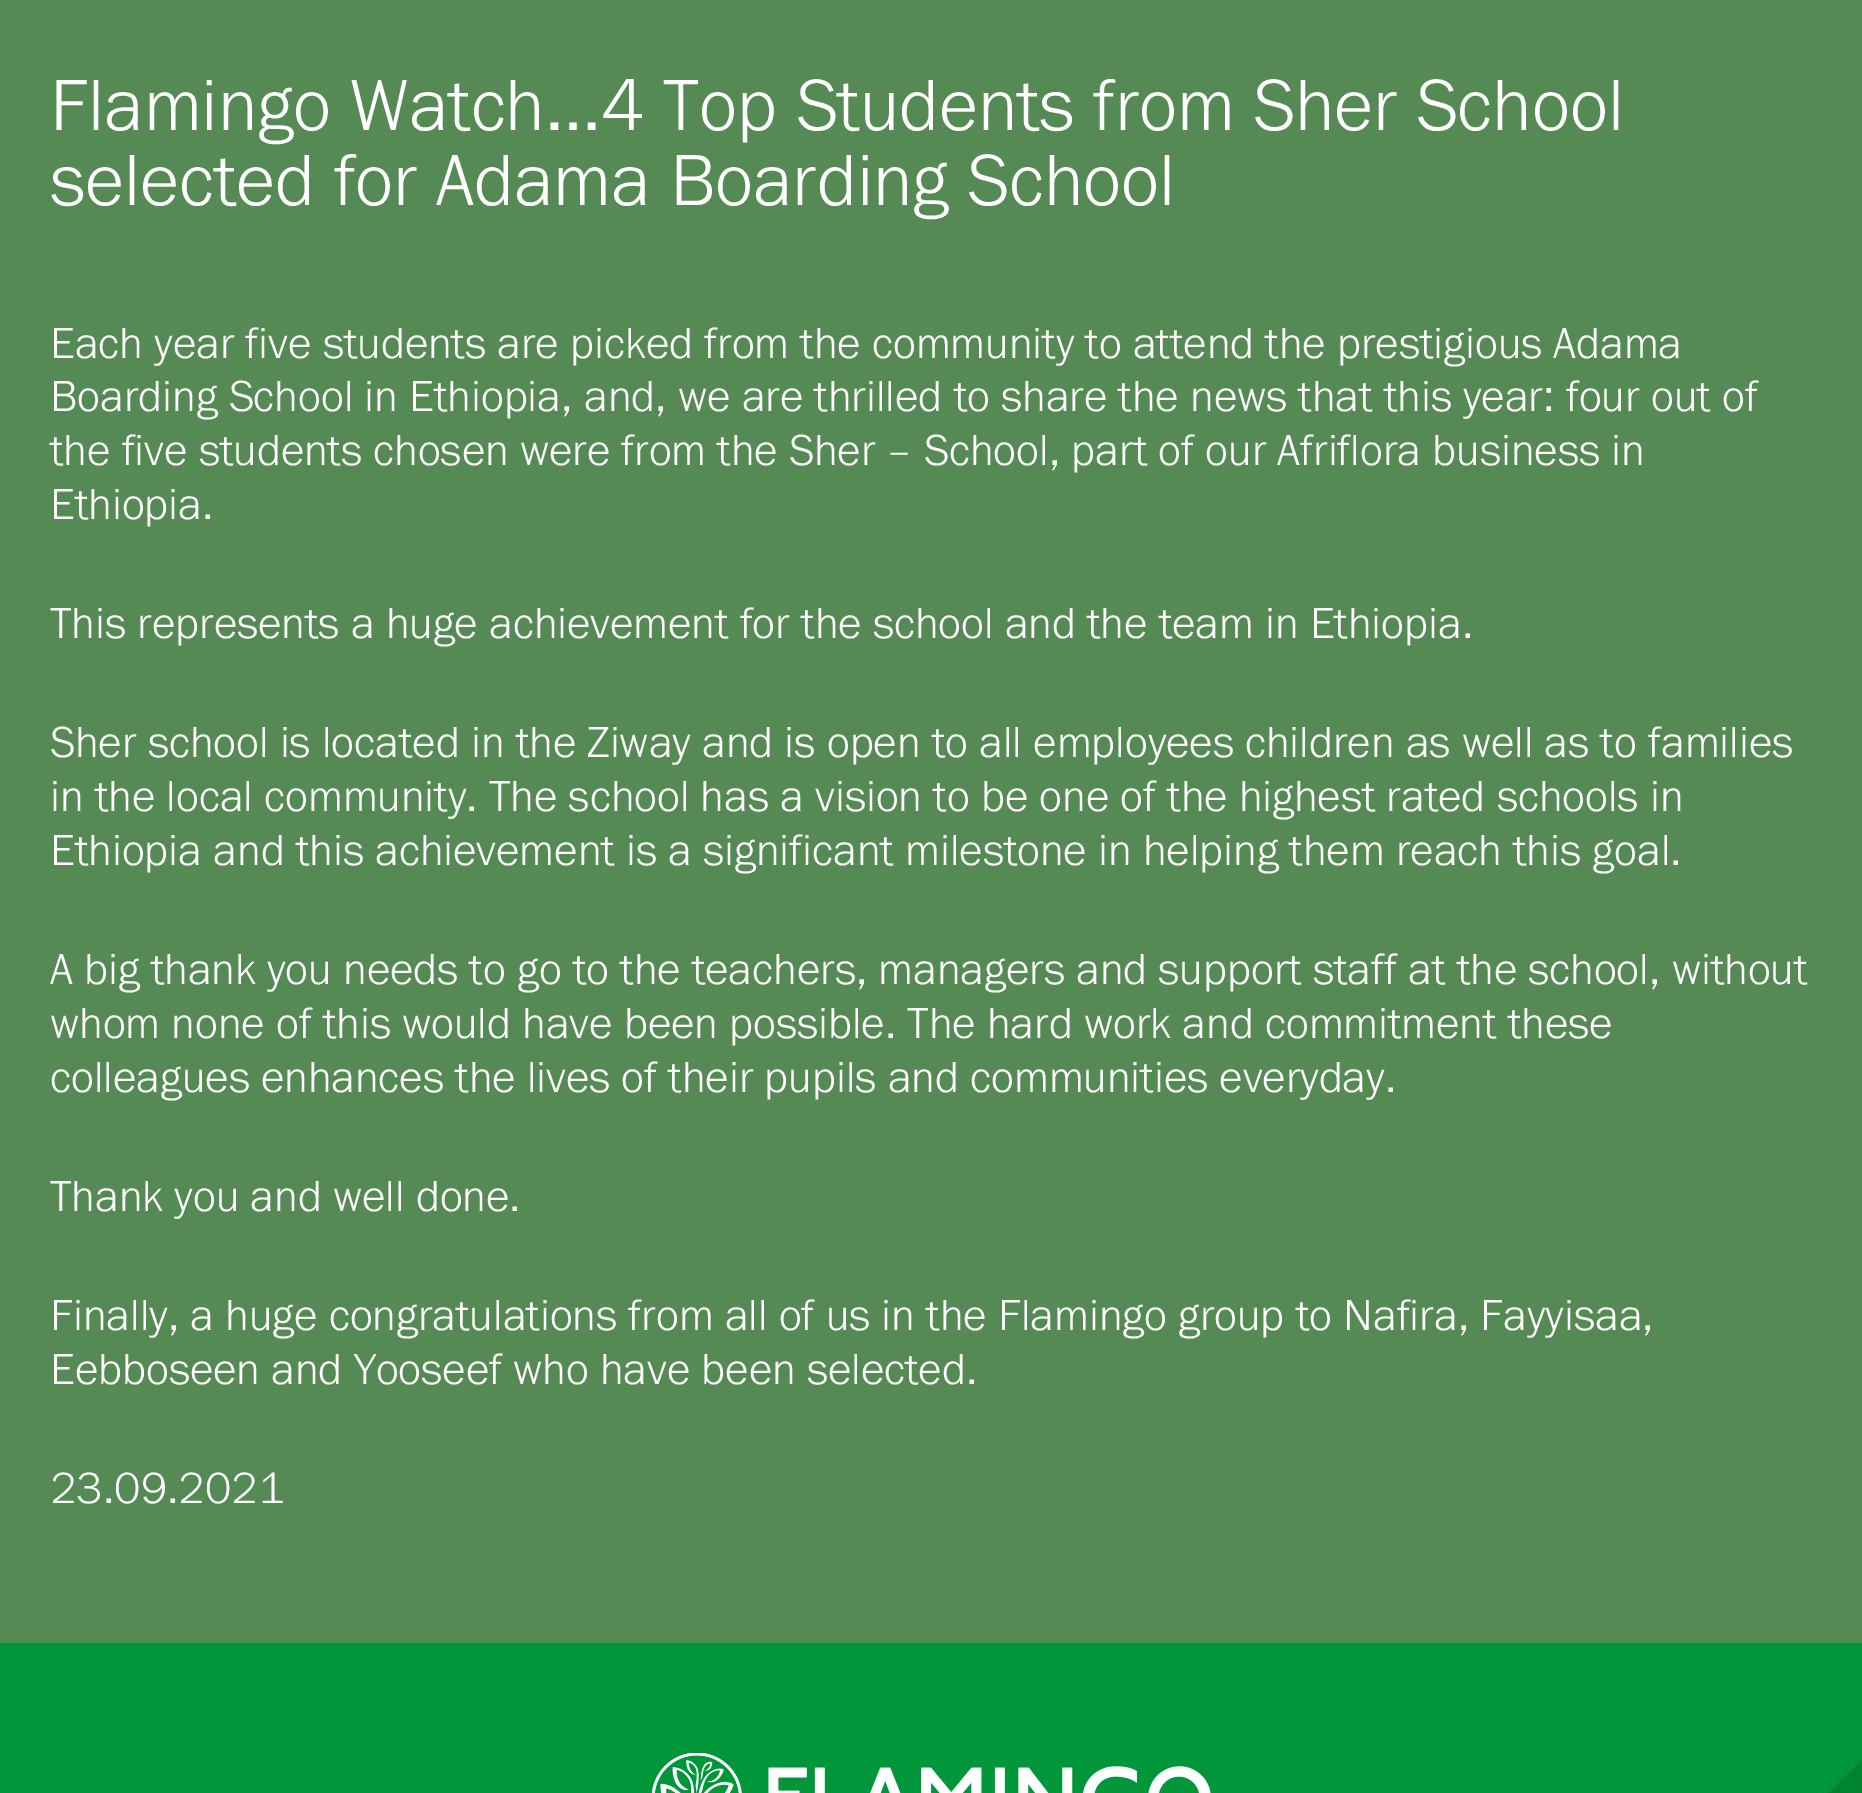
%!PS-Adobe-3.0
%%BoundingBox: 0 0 1862 1793
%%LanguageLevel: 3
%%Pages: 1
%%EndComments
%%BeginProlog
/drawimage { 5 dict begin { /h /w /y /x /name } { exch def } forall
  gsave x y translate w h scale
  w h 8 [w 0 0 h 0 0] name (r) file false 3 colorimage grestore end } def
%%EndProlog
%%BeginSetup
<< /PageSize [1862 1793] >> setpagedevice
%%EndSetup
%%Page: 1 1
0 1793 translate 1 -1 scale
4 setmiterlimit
1 setgray
0 0 1862 1793 rectfill
0.337 0.541 0.329 setrgbcolor
0 0 1862 1643 rectfill
(images/1.raw) 0 1643 1862 150 drawimage
(images/2.raw) 651 1753 560 40 drawimage
/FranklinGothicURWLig-Regular [75 0 0 -75 0 0] selectfont
1 setgray
50 130 moveto (Flamingo Watch…4 Top Students from Sher School) show
50 205 moveto (selected for Adama Boarding School) show
/FranklinGothicURWLig-Regular [45 0 0 -45 0 0] selectfont
50 358 moveto (Each year five students are picked from the community to attend the prestigious Adama) show
50 411 moveto (Boarding School in Ethiopia, and, we are thrilled to share the news that this year: four out of) show
50 465 moveto (the five students chosen were from the Sher – School, part of our Afriflora business in) show
50 519 moveto (Ethiopia.) show
50 638 moveto (This represents a huge achievement for the school and the team in Ethiopia.) show
50 757 moveto (Sher school is located in the Ziway and is open to all employees children as well as to families) show
50 811 moveto (in the local community. The school has a vision to be one of the highest rated schools in) show
50 865 moveto (Ethiopia and this achievement is a significant milestone in helping them reach this goal.) show
50 984 moveto (A big thank you needs to go to the teachers, managers and support staff at the school, without) show
50 1038 moveto (whom none of this would have been possible. The hard work and commitment these) show
50 1092 moveto (colleagues enhances the lives of their pupils and communities everyday.) show
50 1211 moveto (Thank you and well done.) show
50 1330 moveto (Finally, a huge congratulations from all of us in the Flamingo group to Nafira, Fayyisaa,) show
50 1384 moveto (Eebboseen and Yooseef who have been selected.) show
50 1503 moveto (23.09.2021) show
showpage
%%EOF
